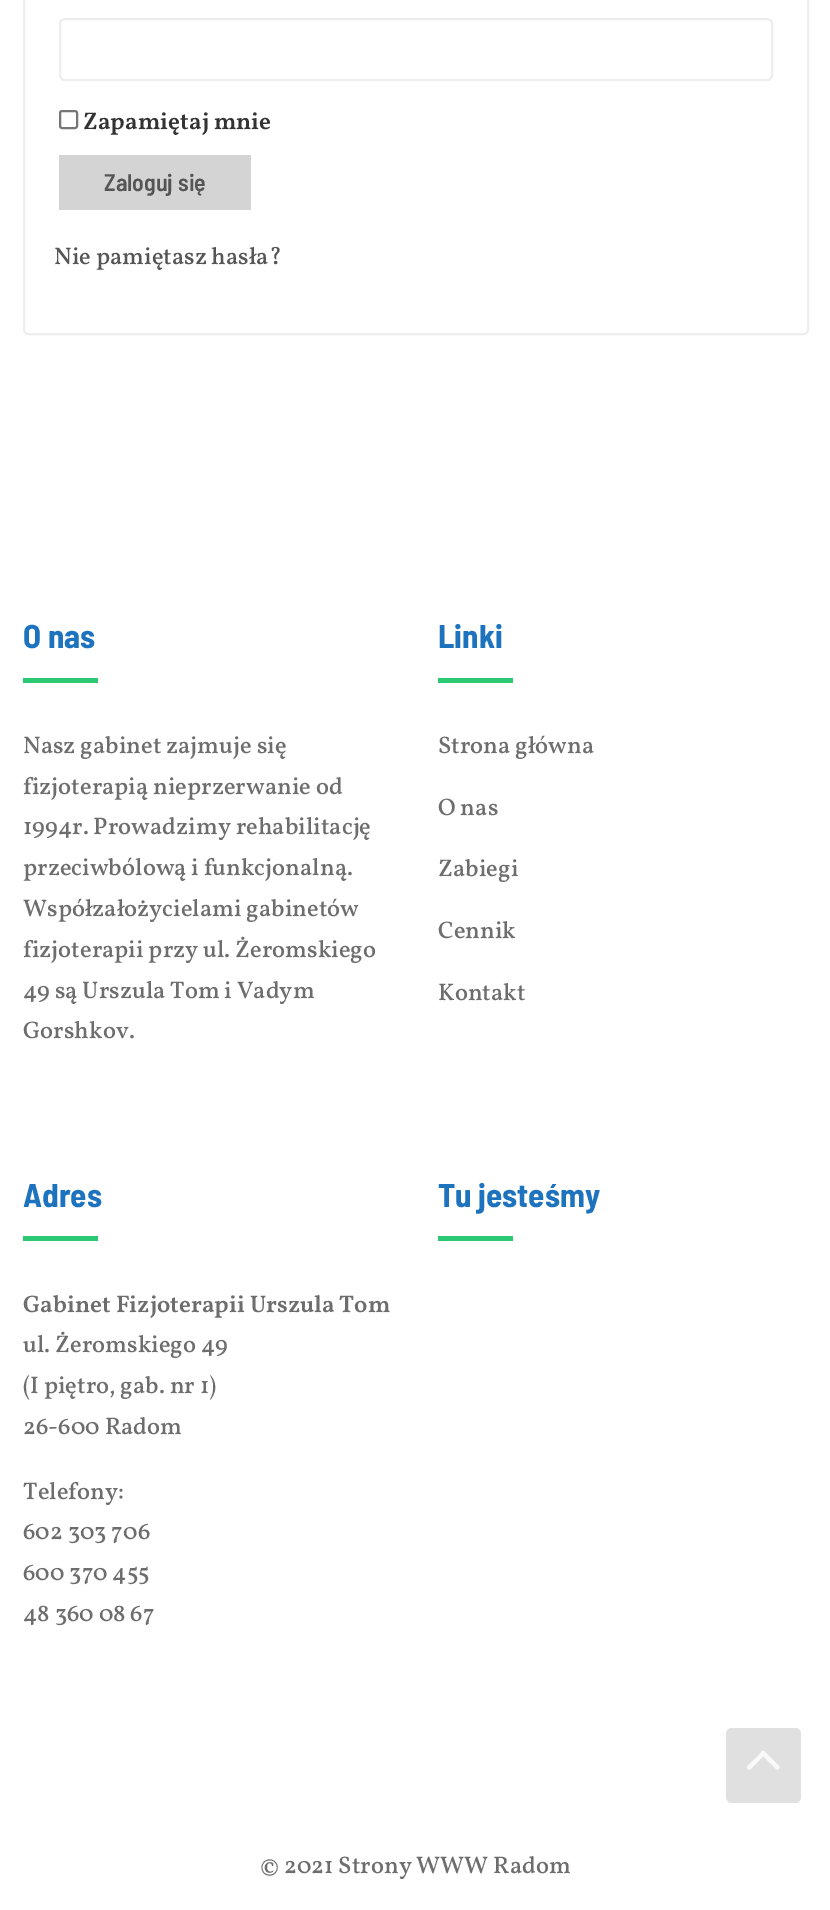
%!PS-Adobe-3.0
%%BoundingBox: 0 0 830 1910
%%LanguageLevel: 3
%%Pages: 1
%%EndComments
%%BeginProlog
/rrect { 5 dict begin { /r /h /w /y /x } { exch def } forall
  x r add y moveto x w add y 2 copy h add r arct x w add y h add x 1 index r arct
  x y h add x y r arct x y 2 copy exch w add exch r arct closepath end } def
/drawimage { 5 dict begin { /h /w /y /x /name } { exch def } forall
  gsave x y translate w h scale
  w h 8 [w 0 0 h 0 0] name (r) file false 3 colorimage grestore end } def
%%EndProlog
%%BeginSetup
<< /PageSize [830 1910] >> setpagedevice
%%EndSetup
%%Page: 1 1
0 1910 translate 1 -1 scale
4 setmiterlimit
1 setgray
0 0 830 1910 rectfill
0.933 setgray
2 setlinewidth
24 -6 784 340 4 rrect stroke
60 19 712 61 5 rrect stroke
0.463 setgray
60 111 17 17 2 rrect stroke
0.831 setgray
59 155 192 55 rectfill
0.173 0.788 0.455 setrgbcolor
23 678 75 5 rectfill
438 678 75 5 rectfill
23 1236 75 5 rectfill
438 1236 75 5 rectfill
0.878 setgray
726 1728 75 75 6 rrect fill
(images/1.raw) 746 1750 34 20 drawimage
/Vollkorn-SemiBold [24 0 0 -24 0 0] selectfont
0.2 setgray
83 129 moveto (Zapamiętaj mnie) show
/BarlowSemiCondensed-SemiBold [24 0 0 -24 0 0] selectfont
0.333 setgray
104 191 moveto (Zaloguj się) show
/Vollkorn-Medium [24 0 0 -24 0 0] selectfont
54 264 moveto (Nie pamiętasz hasła?) show
/BarlowSemiCondensed-Bold [33 0 0 -33 0 0] selectfont
0.118 0.451 0.745 setrgbcolor
23 648 moveto (O nas) show
/Vollkorn-Medium [24 0 0 -24 0 0] selectfont
0.427 setgray
23 753 moveto (Nasz gabinet zajmuje się) show
23 794 moveto (fizjoterapią nieprzerwanie od) show
23 834 moveto (1994r. Prowadzimy rehabilitację) show
23 875 moveto (przeciwbólową i funkcjonalną.) show
23 916 moveto (Współzałożycielami gabinetów) show
23 957 moveto (fizjoterapii przy ul. Żeromskiego) show
23 998 moveto (49 są Urszula Tom i Vadym) show
23 1038 moveto (Gorshkov.) show
/BarlowSemiCondensed-Bold [33 0 0 -33 0 0] selectfont
0.118 0.451 0.745 setrgbcolor
438 648 moveto (Linki) show
/Vollkorn-Medium [24 0 0 -24 0 0] selectfont
0.427 setgray
438 753 moveto (Strona główna) show
438 815 moveto (O nas) show
438 876 moveto (Zabiegi) show
438 938 moveto (Cennik) show
438 1000 moveto (Kontakt) show
/BarlowSemiCondensed-Bold [33 0 0 -33 0 0] selectfont
0.118 0.451 0.745 setrgbcolor
23 1207 moveto (Adres) show
/Vollkorn-SemiBold [24 0 0 -24 0 0] selectfont
0.427 setgray
23 1312 moveto (Gabinet Fizjoterapii Urszula Tom) show
/Vollkorn-Medium [24 0 0 -24 0 0] selectfont
23 1352 moveto (ul. Żeromskiego 49) show
23 1393 moveto (\(I piętro, gab. nr 1\)) show
23 1434 moveto (26-600 Radom) show
23 1499 moveto (Telefony:) show
23 1539 moveto (602 303 706) show
23 1580 moveto (600 370 455) show
23 1621 moveto (48 360 08 67) show
/BarlowSemiCondensed-Bold [33 0 0 -33 0 0] selectfont
0.118 0.451 0.745 setrgbcolor
438 1207 moveto (Tu jesteśmy) show
/Vollkorn-Medium [24 0 0 -24 0 0] selectfont
0.427 setgray
260 1873 moveto (© 2021 Strony WWW Radom) show
showpage
%%EOF
